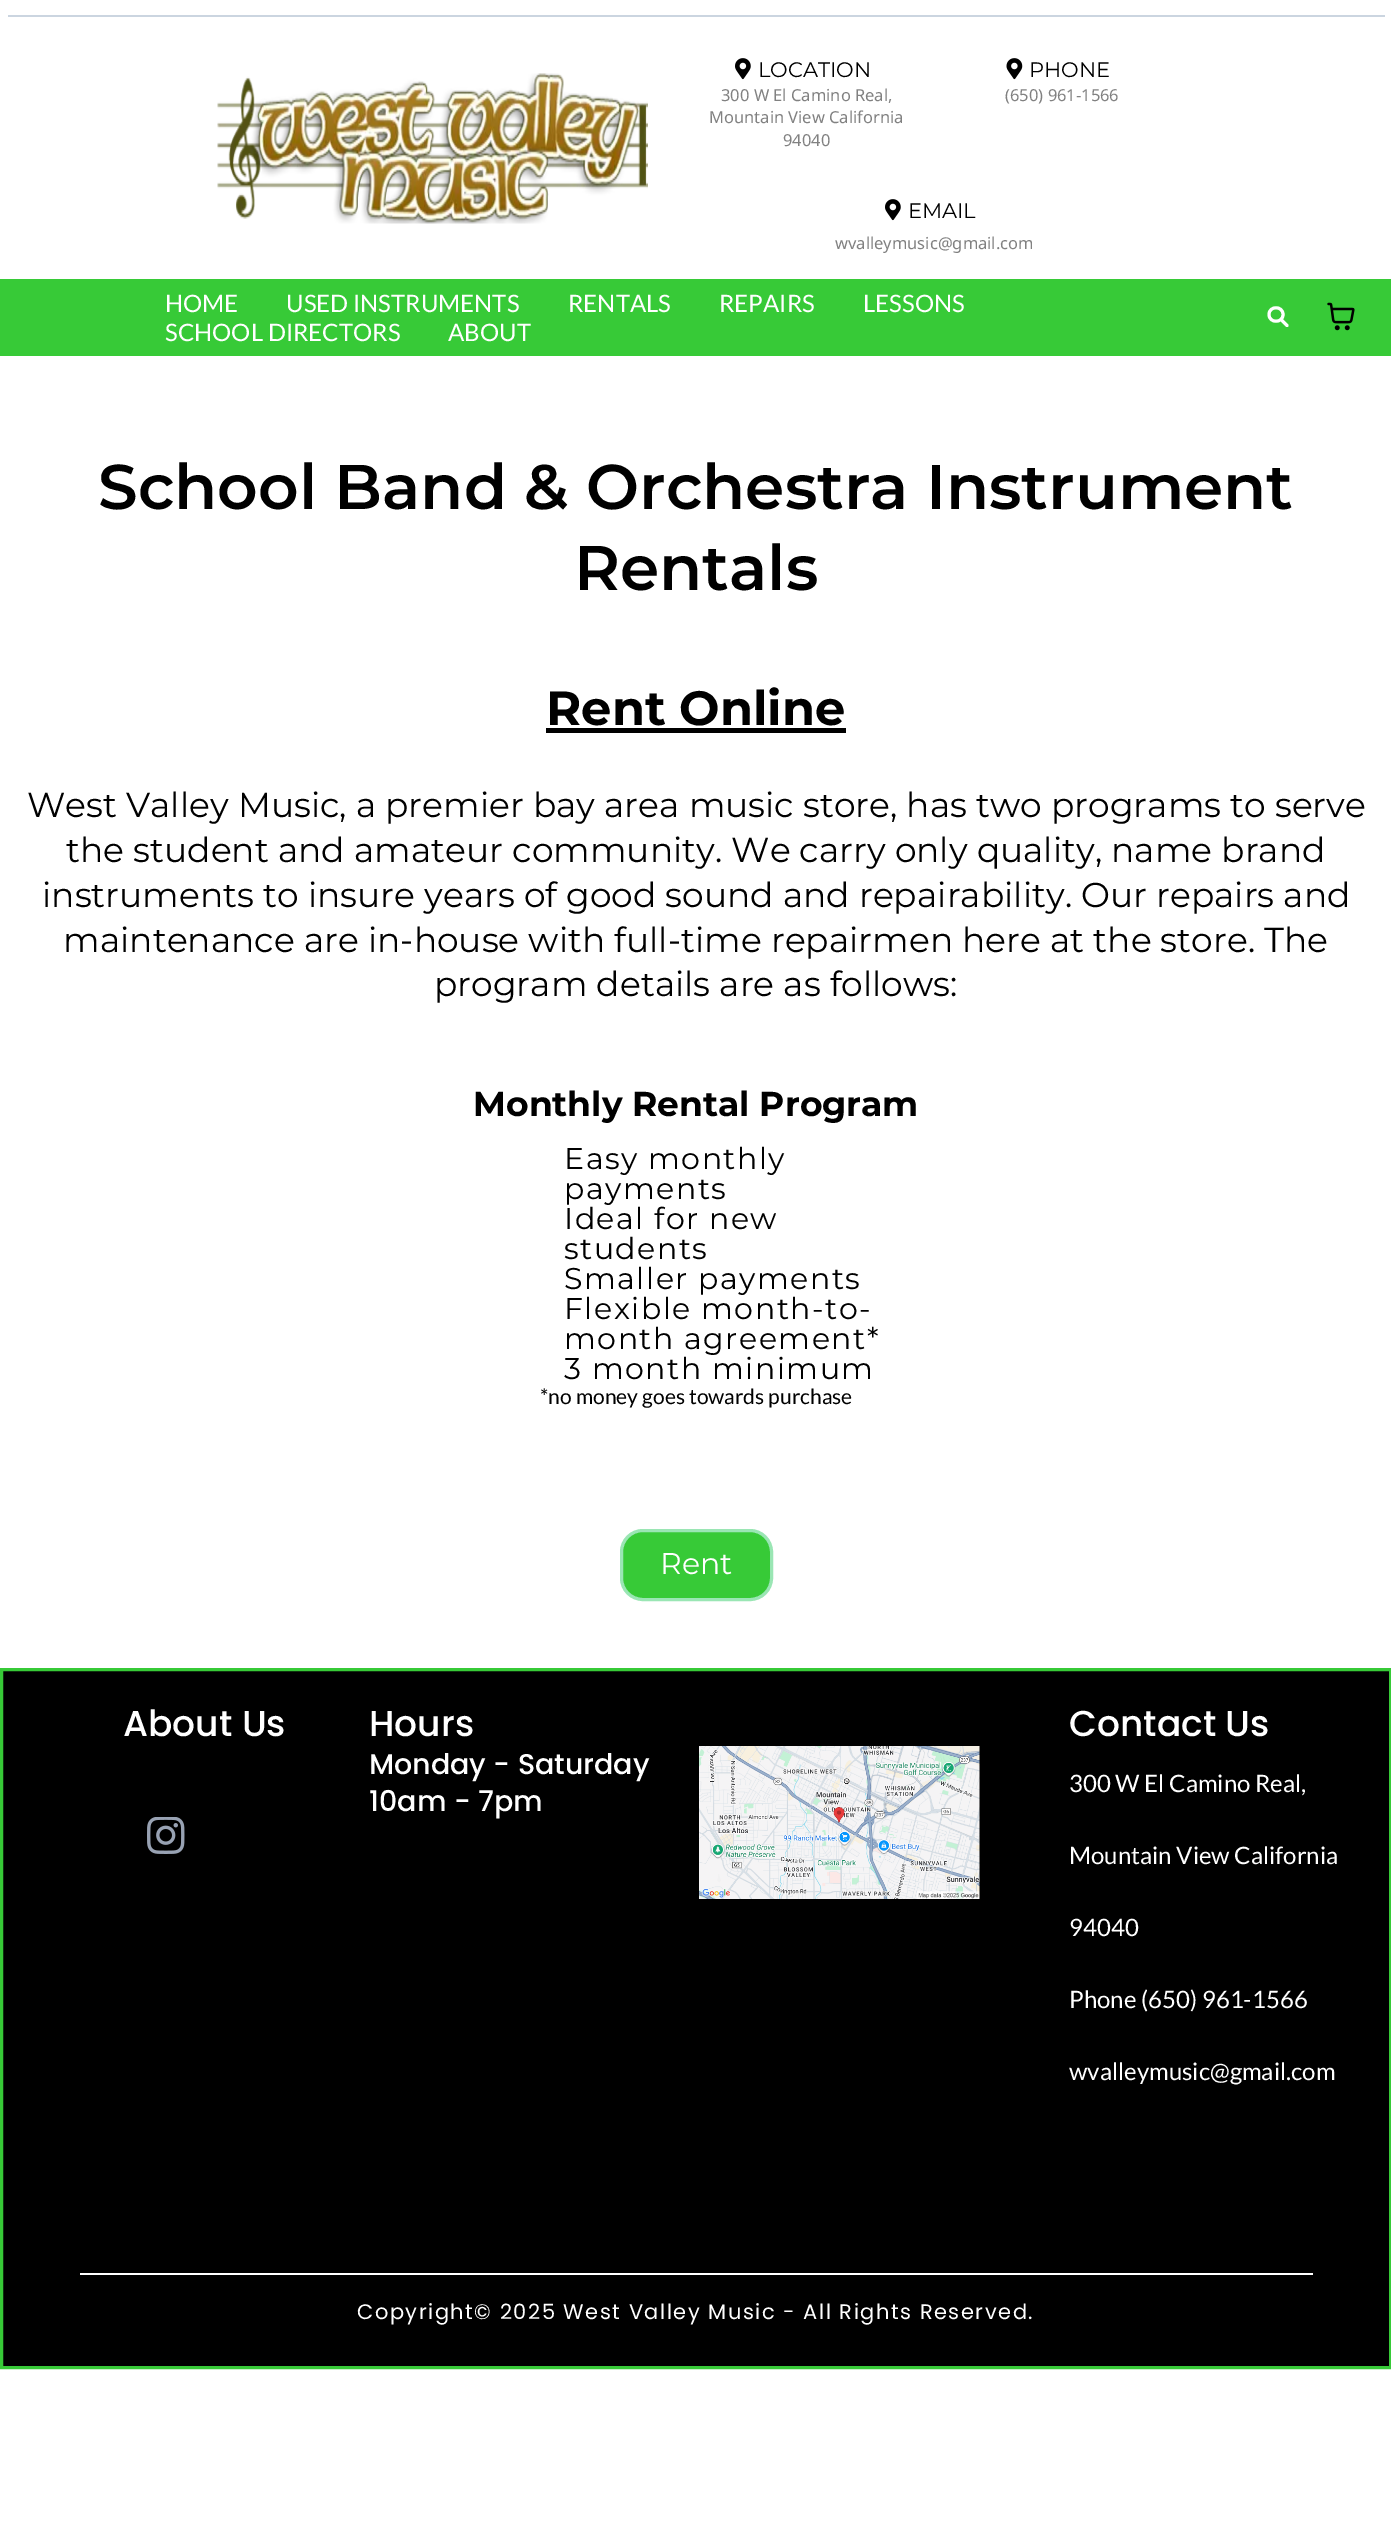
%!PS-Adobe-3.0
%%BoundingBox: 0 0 1391 2548
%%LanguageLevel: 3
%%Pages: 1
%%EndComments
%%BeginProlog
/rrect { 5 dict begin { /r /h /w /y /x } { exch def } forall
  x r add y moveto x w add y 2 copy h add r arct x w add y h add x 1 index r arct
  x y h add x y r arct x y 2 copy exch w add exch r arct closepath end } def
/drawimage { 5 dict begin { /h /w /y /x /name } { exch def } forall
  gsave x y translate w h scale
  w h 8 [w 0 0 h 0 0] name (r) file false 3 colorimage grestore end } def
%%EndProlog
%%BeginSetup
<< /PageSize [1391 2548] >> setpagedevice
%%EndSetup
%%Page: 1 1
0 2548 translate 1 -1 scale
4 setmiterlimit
1 setgray
0 0 1391 2548 rectfill
0.796 0.835 0.878 setrgbcolor
8 15 1377 2 rectfill
(images/1.raw) 217 73 431 151 drawimage
(images/2.raw) 735 58 16 22 drawimage
(images/3.raw) 1006 58 17 22 drawimage
(images/2.raw) 885 199 16 22 drawimage
0.216 0.792 0.216 setrgbcolor
0 279 1391 77 rectfill
1 setgray
3 setlinewidth
1 setlinecap
1 setlinejoin
newpath 1287 325.5 moveto 1281 319.5 lineto 1283 314.5 moveto 1283 323.5 1269 323.5 1269 314.5 curveto 1269 305.5 1283 305.5 1283 314.5 curveto closepath stroke
(images/4.raw) 1327 302 28 29 drawimage
0 setgray
546 728 300 5 rectfill
0.216 0.792 0.216 setrgbcolor
621.5 1530.5 150 69 21.5 rrect gsave fill grestore
0.604 0.902 0.706 setrgbcolor
0 setlinecap
0 setlinejoin
stroke
0 setgray
newpath 1.5 1669.5 moveto 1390.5 1669.5 lineto 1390.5 2367.5 lineto 1.5 2367.5 lineto closepath gsave fill grestore
0.216 0.792 0.216 setrgbcolor
stroke
(images/5.raw) 147 1817 38 37 drawimage
(images/6.raw) 699 1746 281 153 drawimage
1 setgray
80 2273 1233 2 rectfill
/Montserrat-Regular [21 0 0 -21 0 0] selectfont
0 setgray
758 77 moveto (LOCATION) show
/NotoSans-Regular [16.5 0 0 -16.5 0 0] selectfont
0.506 setgray
721 101 moveto (300 W El Camino Real,) show
709 123 moveto (Mountain View California) show
783 146 moveto (94040) show
/Montserrat-Regular [21 0 0 -21 0 0] selectfont
0 setgray
1029 77 moveto (PHONE) show
/NotoSans-Regular [16.5 0 0 -16.5 0 0] selectfont
0.506 setgray
1005 101 moveto (\(650\) 961-1566) show
/Montserrat-Regular [21 0 0 -21 0 0] selectfont
0 setgray
908 218 moveto (EMAIL) show
/NotoSans-Regular [16.5 0 0 -16.5 0 0] selectfont
0.506 setgray
835 249 moveto (wvalleymusic@gmail.com) show
/Lato-Regular [24 0 0 -24 0 0] selectfont
1 setgray
165 312 moveto (HOME) show
286 312 moveto (USED INSTRUMENTS) show
568 312 moveto (RENTALS) show
719 312 moveto (REPAIRS) show
863 312 moveto (LESSONS) show
165 341 moveto (SCHOOL DIRECTORS) show
448 341 moveto (ABOUT) show
/Montserrat-SemiBold [63 0 0 -63 0 0] selectfont
0 setgray
98 509 moveto (School Band & Orchestra Instrument) show
574 590 moveto (Rentals) show
/Montserrat-Bold [48 0 0 -48 0 0] selectfont
546 725 moveto (Rent Online) show
/Montserrat-Regular [34.5 0 0 -34.5 0 0] selectfont
27 817 moveto (West Valley Music, a premier bay area music store, has two programs to serve) show
66 862 moveto (the student and amateur community. We carry only quality, name brand) show
42 907 moveto (instruments to insure years of good sound and repairability. Our repairs and) show
63 952 moveto (maintenance are in-house with full-time repairmen here at the store. The) show
434 996 moveto (program details are as follows:) show
/Montserrat-Bold [34.5 0 0 -34.5 0 0] selectfont
473 1116 moveto (Monthly Rental Program) show
/Montserrat-Regular [30 0 0 -30 0 0] selectfont
564 1169 moveto 1.5 0 (Easy monthly) ashow
564 1199 moveto 1.5 0 (payments) ashow
564 1229 moveto 1.5 0 (Ideal for new) ashow
564 1259 moveto 1.5 0 (students) ashow
564 1289 moveto 1.5 0 (Smaller payments) ashow
564 1319 moveto 1.5 0 (Flexible month-to-) ashow
564 1349 moveto 1.5 0 (month agreement*) ashow
564 1379 moveto 1.5 0 (3 month minimum) ashow
/Lato-Regular [21 0 0 -21 0 0] selectfont
540 1404 moveto (*no money goes towards purchase) show
/Montserrat-Regular [30 0 0 -30 0 0] selectfont
1 setgray
660 1574 moveto (Rent) show
/Poppins-Medium [36 0 0 -36 0 0] selectfont
123 1736 moveto (About Us) show
369 1736 moveto (Hours) show
/Poppins-Medium [28.5 0 0 -28.5 0 0] selectfont
369 1774 moveto (Monday - Saturday) show
369 1811 moveto (10am - 7pm) show
/Poppins-Medium [36 0 0 -36 0 0] selectfont
1069 1736 moveto (Contact Us) show
/Lato-Regular [24 0 0 -24 0 0] selectfont
1069 1792 moveto (300 W El Camino Real,) show
1069 1864 moveto (Mountain View California) show
1069 1936 moveto (94040) show
1069 2008 moveto (Phone \(650\) 961-1566) show
1069 2080 moveto (wvalleymusic@gmail.com) show
/Poppins-Regular [21 0 0 -21 0 0] selectfont
357 2319 moveto 1.5 0 (Copyright© 2025 West Valley Music - All Rights Reserved.) ashow
showpage
%%EOF
